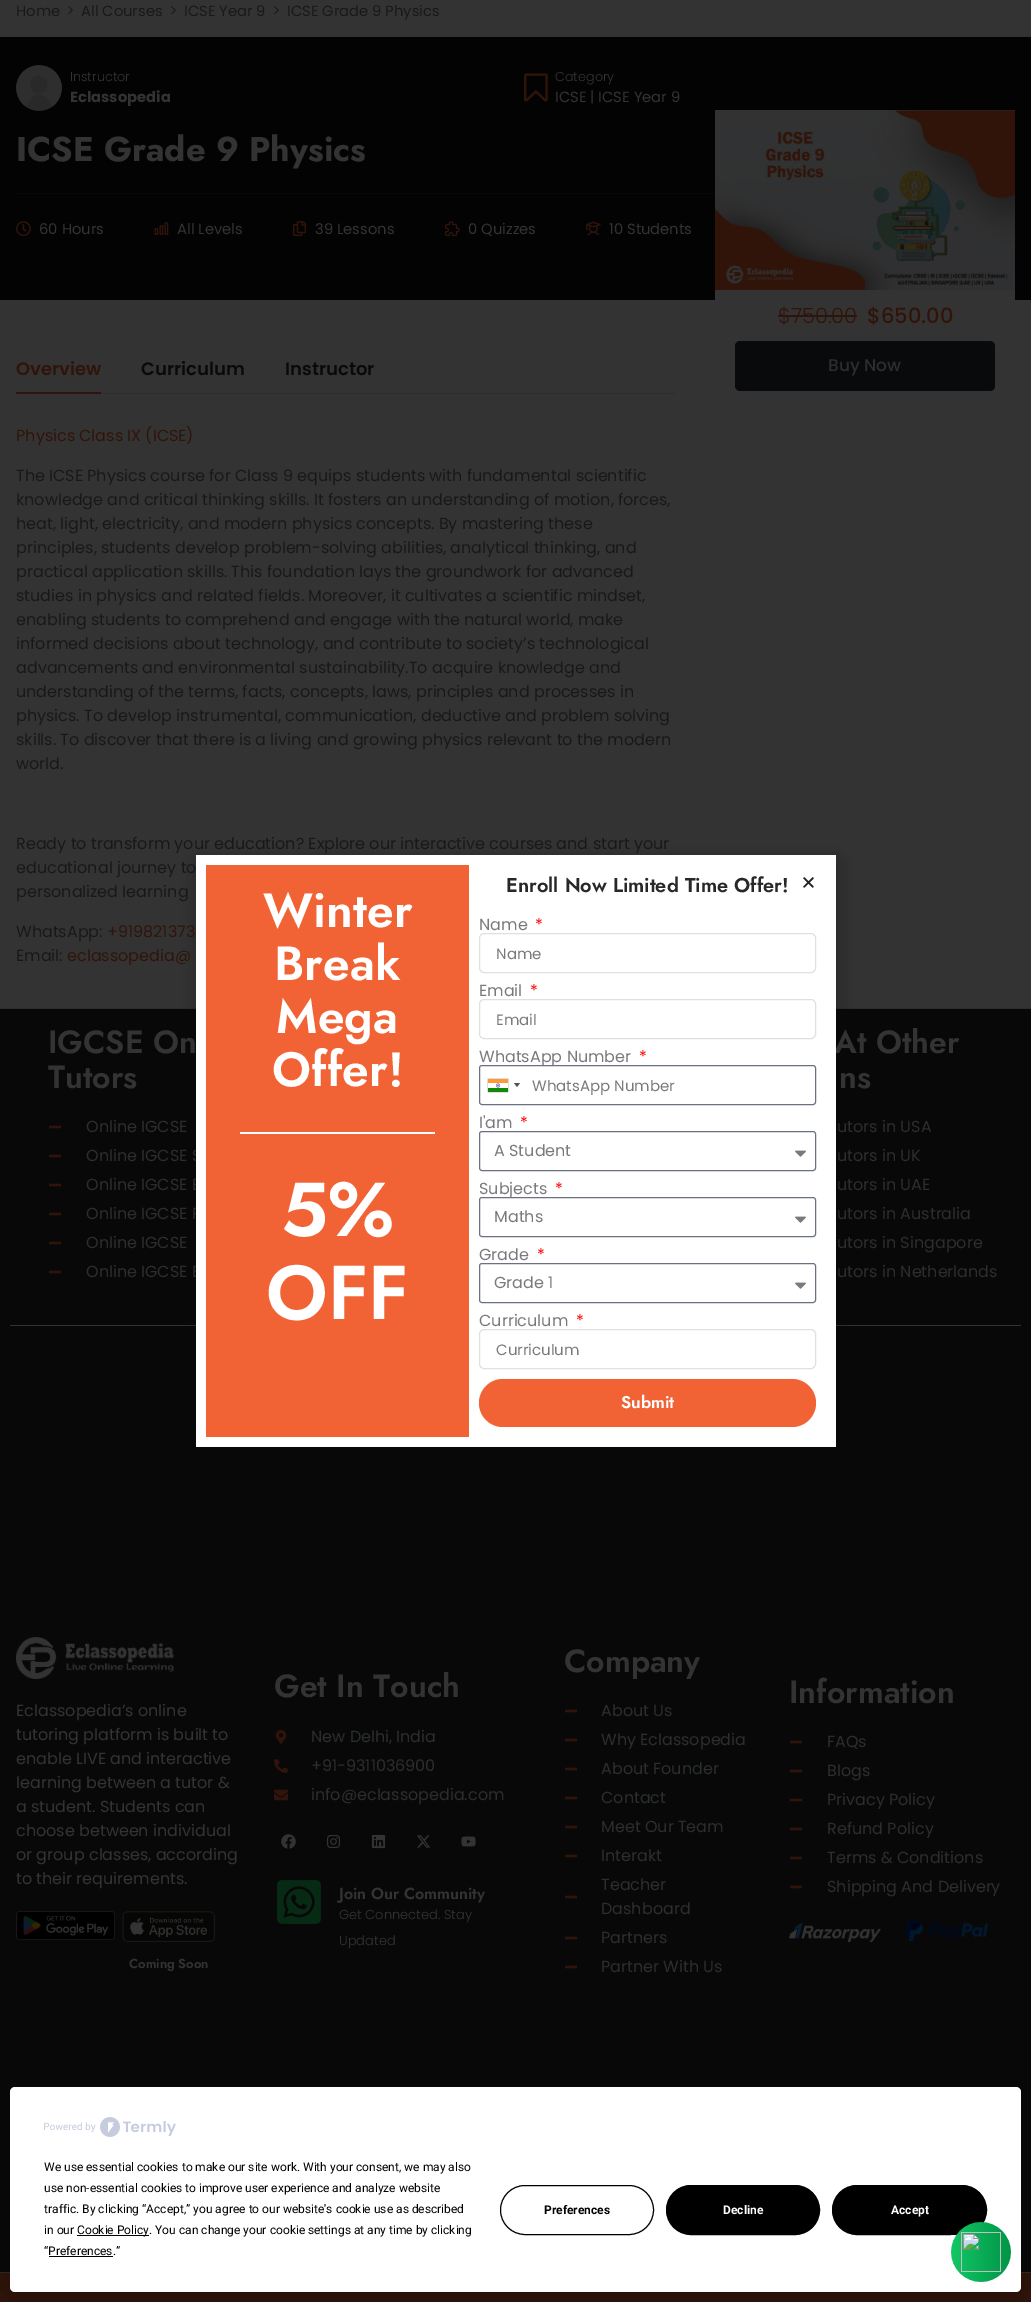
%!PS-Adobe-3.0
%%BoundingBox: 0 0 1031 2302
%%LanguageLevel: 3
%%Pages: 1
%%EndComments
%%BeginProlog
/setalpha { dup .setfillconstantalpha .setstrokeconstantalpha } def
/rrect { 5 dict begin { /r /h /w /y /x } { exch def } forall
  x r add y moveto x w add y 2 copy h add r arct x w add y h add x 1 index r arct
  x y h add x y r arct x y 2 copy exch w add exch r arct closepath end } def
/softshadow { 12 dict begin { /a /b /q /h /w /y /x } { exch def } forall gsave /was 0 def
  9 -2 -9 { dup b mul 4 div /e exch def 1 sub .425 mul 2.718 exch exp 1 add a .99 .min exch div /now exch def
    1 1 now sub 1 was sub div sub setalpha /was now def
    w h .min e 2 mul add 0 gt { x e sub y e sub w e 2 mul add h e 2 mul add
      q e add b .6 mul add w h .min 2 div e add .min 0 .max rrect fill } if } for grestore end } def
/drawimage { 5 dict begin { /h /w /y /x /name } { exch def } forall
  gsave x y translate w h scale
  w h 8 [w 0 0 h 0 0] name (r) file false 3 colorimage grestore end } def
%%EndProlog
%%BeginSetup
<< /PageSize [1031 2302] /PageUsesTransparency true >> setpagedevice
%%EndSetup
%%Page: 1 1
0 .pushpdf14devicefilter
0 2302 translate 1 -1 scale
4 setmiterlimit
0.2 setgray
0 0 1031 2302 rectfill
(images/1.raw) 68 6 5 9 drawimage
(images/1.raw) 171 6 5 9 drawimage
(images/1.raw) 274 6 5 9 drawimage
0.012 setgray
0 37 1031 263 rectfill
(images/2.raw) 16 65 46 46 drawimage
(images/3.raw) 524 73 24 29 drawimage
0.031 setgray
16 193 699 1 rectfill
(images/4.raw) 16 221 15 16 drawimage
(images/5.raw) 154 222 15 13 drawimage
(images/6.raw) 293 221 13 16 drawimage
(images/7.raw) 445 221 15 16 drawimage
(images/8.raw) 586 221 15 15 drawimage
0.2 setgray
715 290 300 10 rectfill
(images/9.raw) 715 110 300 180 drawimage
0.188 0.078 0.039 setrgbcolor
778 315 79 2 rectfill
0.031 0.039 0.047 setrgbcolor
735 341 260 50 5 rrect fill
0.176 0.176 0.173 setrgbcolor
101 393 574 1 rectfill
0.188 0.078 0.039 setrgbcolor
16 392 85 2 rectfill
0.031 setgray
0 1009 1031 1263 rectfill
0.176 setgray
0 1008 1031 1 rectfill
0.2 setgray
10 1325 1011 1 rectfill
0 setgray
195 860 646 598 0 11.5 0.2 softshadow
(images/13.raw) 48 1125 14 4 drawimage
(images/13.raw) 48 1154 14 4 drawimage
(images/13.raw) 48 1183 14 4 drawimage
(images/13.raw) 48 1212 14 4 drawimage
(images/13.raw) 48 1241 14 4 drawimage
(images/13.raw) 48 1270 14 4 drawimage
(images/14.raw) 16 1637 158 42 drawimage
(images/15.raw) 16 1911 99 29 drawimage
(images/16.raw) 122 1911 93 31 drawimage
(images/17.raw) 275 1730 12 14 drawimage
(images/18.raw) 274 1759 14 14 drawimage
(images/19.raw) 274 1789 14 12 drawimage
(images/20.raw) 281 1834 15 15 drawimage
(images/21.raw) 327 1835 14 13 drawimage
(images/22.raw) 371 1834 15 15 drawimage
(images/23.raw) 416 1835 15 13 drawimage
(images/24.raw) 461 1836 15 11 drawimage
(images/25.raw) 277 1880 44 44 drawimage
(images/13.raw) 564 1709 14 4 drawimage
(images/13.raw) 564 1738 14 4 drawimage
(images/13.raw) 564 1767 14 4 drawimage
(images/13.raw) 564 1796 14 4 drawimage
(images/13.raw) 564 1825 14 4 drawimage
(images/13.raw) 564 1854 14 4 drawimage
(images/13.raw) 564 1895 14 4 drawimage
(images/13.raw) 564 1936 14 4 drawimage
(images/13.raw) 564 1965 14 4 drawimage
(images/13.raw) 789 1740 14 4 drawimage
(images/13.raw) 789 1769 14 4 drawimage
(images/13.raw) 789 1798 14 4 drawimage
(images/13.raw) 789 1827 14 4 drawimage
(images/13.raw) 789 1856 14 4 drawimage
(images/13.raw) 789 1885 14 4 drawimage
(images/26.raw) 789 1922 92 20 drawimage
(images/27.raw) 905 1919 83 22 drawimage
0.188 0.078 0.039 setrgbcolor
0 2273 1031 29 rectfill
0.176 setgray
0 2272 1031 1 rectfill
0 setgray
10 2087 1011 205 5 17.5 0.25 softshadow
1 setgray
10 2087 1011 205 5 rrect fill
(images/28.raw) 44 2117 132 20 drawimage
0 setgray
77 2235 72 1 rectfill
49 2256 64 1 rectfill
500.5 2185.5 153 49 24.5 rrect stroke
666.5 2185.5 153 49 24.5 rrect gsave fill grestore
stroke
832.5 2185.5 154 49 24.5 rrect gsave fill grestore
stroke
(images/29.raw) 951 2222 60 60 drawimage
/Poppins-Regular [14.75 0 0 -14.75 0 0] selectfont
0.094 setgray
16 16 moveto (Home) show
81 16 moveto (All Courses) show
184 16 moveto (ICSE Year 9) show
287 16 moveto (ICSE Grade 9 Physics) show
/Poppins-Light [12.75 0 0 -12.75 0 0] selectfont
0.2 setgray
70 81 moveto (Instructor) show
/Poppins-Bold [14.75 0 0 -14.75 0 0] selectfont
70 102 moveto (Eclassopedia) show
/Poppins-Light [12.75 0 0 -12.75 0 0] selectfont
555 81 moveto (Category) show
/Poppins-Regular [14.75 0 0 -14.75 0 0] selectfont
555 102 moveto (ICSE | ICSE Year 9) show
/Jost-Bold [34.4 0 0 -34.4 0 0] selectfont
16 161 moveto (ICSE Grade 9 Physics) show
/Poppins-Regular [14.75 0 0 -14.75 0 0] selectfont
39 234 moveto (60 Hours) show
177 234 moveto (All Levels) show
315 234 moveto (39 Lessons) show
468 234 moveto (0 Quizzes) show
609 234 moveto (10 Students) show
/Poppins-Light [21 0 0 -21 0 0] selectfont
0.188 0.078 0.039 setrgbcolor
778 323 moveto ($750.00) show
/Poppins-Medium [21 0 0 -21 0 0] selectfont
867 323 moveto ($650.00) show
/Poppins-Medium [17 0 0 -17 0 0] selectfont
0.165 0.18 0.173 setrgbcolor
828 371 moveto (Buy Now) show
/Poppins-SemiBold [18 0 0 -18 0 0] selectfont
0.188 0.078 0.039 setrgbcolor
16 375 moveto (Overview) show
0.039 setgray
141 375 moveto (Curriculum) show
285 375 moveto (Instructor) show
/Poppins-Regular [16 0 0 -16 0 0] selectfont
0.188 0.078 0.039 setrgbcolor
16 441 moveto (Physics Class IX \(ICSE\)) show
0.094 setgray
16 481 moveto (The ICSE Physics course for Class 9 equips students with fundamental scientific) show
16 505 moveto (knowledge and critical thinking skills. It fosters an understanding of motion, forces,) show
16 529 moveto (heat, light, electricity, and modern physics concepts. By mastering these) show
16 553 moveto (principles, students develop problem-solving abilities, analytical thinking, and) show
16 577 moveto (practical application skills. This foundation lays the groundwork for advanced) show
16 601 moveto (studies in physics and related fields. Moreover, it cultivates a scientific mindset,) show
16 625 moveto (enabling students to comprehend and engage with the natural world, make) show
16 649 moveto (informed decisions about technology, and contribute to society’s technological) show
16 673 moveto (advancements and environmental sustainability.To acquire knowledge and) show
16 697 moveto (understanding of the terms, facts, concepts, laws, principles and processes in) show
16 721 moveto (physics. To develop instrumental, communication, deductive and problem solving) show
16 745 moveto (skills. To discover that there is a living and growing physics relevant to the modern) show
16 769 moveto (world.) show
16 849 moveto (Ready to transform your education? Explore our interactive courses and start your) show
16 873 moveto (educational journey to) show
16 897 moveto (personalized learning) show
16 937 moveto (WhatsApp:) show
0.188 0.078 0.039 setrgbcolor
107 937 moveto (+919821373) show
0.094 setgray
16 961 moveto (Email:) show
0.188 0.078 0.039 setrgbcolor
67 961 moveto (eclassopedia@) show
/Jost-SemiBold [32 0 0 -32 0 0] selectfont
0.2 setgray
48 1053 moveto (IGCSE On) show
48 1088 moveto (Tutors) show
/Poppins-Regular [16 0 0 -16 0 0] selectfont
0.165 0.18 0.173 setrgbcolor
86 1132 moveto (Online IGCSE) show
86 1161 moveto (Online IGCSE S) show
86 1190 moveto (Online IGCSE E) show
86 1219 moveto (Online IGCSE P) show
86 1248 moveto (Online IGCSE) show
86 1277 moveto (Online IGCSE B) show
/Jost-SemiBold [32 0 0 -32 0 0] selectfont
0.2 setgray
834 1053 moveto (At Other) show
1 setgray
196 855 640 592 rectfill
(images/12.raw) 803 877 11 11 drawimage
/Poppins-Regular [16 0 0 -16 0 0] selectfont
0.478 setgray
479 1062 moveto (WhatsApp Number) show
1 setgray
479.5 1065.5 336 39 2.5 rrect gsave fill grestore
0.412 0.447 0.49 setrgbcolor
stroke
0.333 setgray
newpath 514 1083 moveto 520 1083 lineto 517 1087 lineto closepath fill
0.533 setgray
488 1079 20 13 0 0.5 1 softshadow
(images/10.raw) 488 1079 20 13 drawimage
0.945 0.388 0.204 setrgbcolor
479 1379 337 48 24 rrect fill
/Jost-SemiBold [17 0 0 -17 0 0] selectfont
1 setgray
621 1408 moveto (Submit) show
0.886 0.878 0.859 setrgbcolor
479.5 1329.5 336 39 4.5 rrect stroke
/Poppins-Regular [15 0 0 -15 0 0] selectfont
0.478 setgray
496 1355 moveto (Curriculum) show
/Poppins-Regular [16 0 0 -16 0 0] selectfont
1 0 0 setrgbcolor
576 1326 moveto (*) show
0.478 setgray
479 1326 moveto (Curriculum) show
0.412 0.447 0.49 setrgbcolor
479.5 1263.5 336 39 2.5 rrect stroke
(images/11.raw) 795 1282 11 7 drawimage
0.478 setgray
494 1288 moveto (Grade 1) show
1 0 0 setrgbcolor
537 1260 moveto (*) show
0.478 setgray
479 1260 moveto (Grade) show
479 1194 moveto (Subjects) show
1 setgray
479.5 1197.5 336 39 2.5 rrect gsave fill grestore
0.412 0.447 0.49 setrgbcolor
stroke
(images/11.raw) 795 1216 11 7 drawimage
0.478 setgray
494 1222 moveto (Maths) show
1 0 0 setrgbcolor
555 1194 moveto (*) show
0.412 0.447 0.49 setrgbcolor
479.5 1131.5 336 39 2.5 rrect stroke
(images/11.raw) 795 1150 11 7 drawimage
0.478 setgray
494 1156 moveto (A Student) show
1 0 0 setrgbcolor
520 1128 moveto (*) show
0.478 setgray
479 1128 moveto (I'am) show
/Poppins-Regular [15 0 0 -15 0 0] selectfont
532 1091 moveto (WhatsApp Number) show
/Poppins-Regular [16 0 0 -16 0 0] selectfont
1 0 0 setrgbcolor
639 1062 moveto (*) show
0.886 0.878 0.859 setrgbcolor
479.5 999.5 336 39 4.5 rrect stroke
/Poppins-Regular [15 0 0 -15 0 0] selectfont
0.478 setgray
496 1025 moveto (Email) show
/Poppins-Regular [16 0 0 -16 0 0] selectfont
1 0 0 setrgbcolor
530 996 moveto (*) show
0.478 setgray
479 996 moveto (Email) show
0.886 0.878 0.859 setrgbcolor
479.5 933.5 336 39 4.5 rrect stroke
/Poppins-Regular [15 0 0 -15 0 0] selectfont
0.478 setgray
496 959 moveto (Name) show
/Poppins-Regular [16 0 0 -16 0 0] selectfont
1 0 0 setrgbcolor
535 930 moveto (*) show
0.478 setgray
479 930 moveto (Name) show
/Jost-SemiBold [20 0 0 -20 0 0] selectfont
0.157 setgray
506 892 moveto (Enroll Now Limited Time Offer!) show
0.945 0.388 0.204 setrgbcolor
206 865 263 572 rectfill
/Jost-SemiBold [76 0 0 -76 0 0] selectfont
1 setgray
266 1319 moveto (OFF) show
281 1236 moveto (5%) show
240 1132 195 2 rectfill
/Jost-SemiBold [48 0 0 -48 0 0] selectfont
272 1086 moveto (Offer!) show
276 1033 moveto (Mega) show
274 980 moveto (Break) show
263 927 moveto (Winter) show
/Jost-SemiBold [32 0 0 -32 0 0] selectfont
0.2 setgray
839 1088 moveto (ns) show
/Poppins-Regular [16 0 0 -16 0 0] selectfont
0.165 0.18 0.173 setrgbcolor
837 1132 moveto (utors in USA) show
837 1161 moveto (utors in UK) show
837 1190 moveto (utors in UAE) show
837 1219 moveto (utors in Australia) show
837 1248 moveto (utors in Singapore) show
837 1277 moveto (utors in Netherlands) show
0.2 setgray
16 1716 moveto (Eclassopedia’s online) show
16 1740 moveto (tutoring platform is built to) show
16 1764 moveto (enable LIVE and interactive) show
16 1788 moveto (learning between a tutor &) show
16 1812 moveto (a student. Students can) show
16 1836 moveto (choose between individual) show
16 1860 moveto (or group classes, according) show
16 1884 moveto (to their requirements.) show
/Jost-SemiBold [13 0 0 -13 0 0] selectfont
129 1968 moveto (Coming Soon) show
/Jost-SemiBold [32 0 0 -32 0 0] selectfont
274 1697 moveto (Get In Touch) show
/Poppins-Regular [16 0 0 -16 0 0] selectfont
0.165 0.18 0.173 setrgbcolor
311 1742 moveto (New Delhi, India) show
311 1771 moveto (+91-9311036900) show
311 1800 moveto (info@eclassopedia.com) show
/Jost-SemiBold [16 0 0 -16 0 0] selectfont
0.2 setgray
339 1899 moveto (Join Our Community) show
/Poppins-Light [13 0 0 -13 0 0] selectfont
339 1919 moveto (Get Connected. Stay) show
339 1945 moveto (Updated) show
/Jost-SemiBold [32 0 0 -32 0 0] selectfont
564 1672 moveto (Company) show
/Poppins-Regular [16 0 0 -16 0 0] selectfont
0.165 0.18 0.173 setrgbcolor
601 1716 moveto (About Us) show
601 1745 moveto (Why Eclassopedia) show
601 1774 moveto (About Founder) show
601 1803 moveto (Contact) show
601 1832 moveto (Meet Our Team) show
601 1861 moveto (Interakt) show
601 1890 moveto (Teacher) show
601 1914 moveto (Dashboard) show
601 1943 moveto (Partners) show
601 1972 moveto (Partner With Us) show
/Jost-SemiBold [32 0 0 -32 0 0] selectfont
0.2 setgray
789 1703 moveto (Information) show
/Poppins-Regular [16 0 0 -16 0 0] selectfont
0.165 0.18 0.173 setrgbcolor
827 1747 moveto (FAQs) show
827 1776 moveto (Blogs) show
827 1805 moveto (Privacy Policy) show
827 1834 moveto (Refund Policy) show
827 1863 moveto (Terms & Conditions) show
827 1892 moveto (Shipping And Delivery) show
/Roboto-Regular [12 0 0 -12 0 0] selectfont
0 setgray
44 2171 moveto (We use essential cookies to make our site work. With your consent, we may also) show
44 2192 moveto (use non-essential cookies to improve user experience and analyze website) show
44 2213 moveto (traffic. By clicking “Accept,” you agree to our website's cookie use as described) show
44 2234 moveto (in our) show
77 2234 moveto (Cookie Policy. You can change your cookie settings at any time by clicking) show
44 2255 moveto (“Preferences.”) show
/Roboto-Bold [12 0 0 -12 0 0] selectfont
544 2214 moveto (Preferences) show
1 setgray
723 2214 moveto (Decline) show
891 2214 moveto (Accept) show
.poppdf14devicefilter showpage
%%EOF
